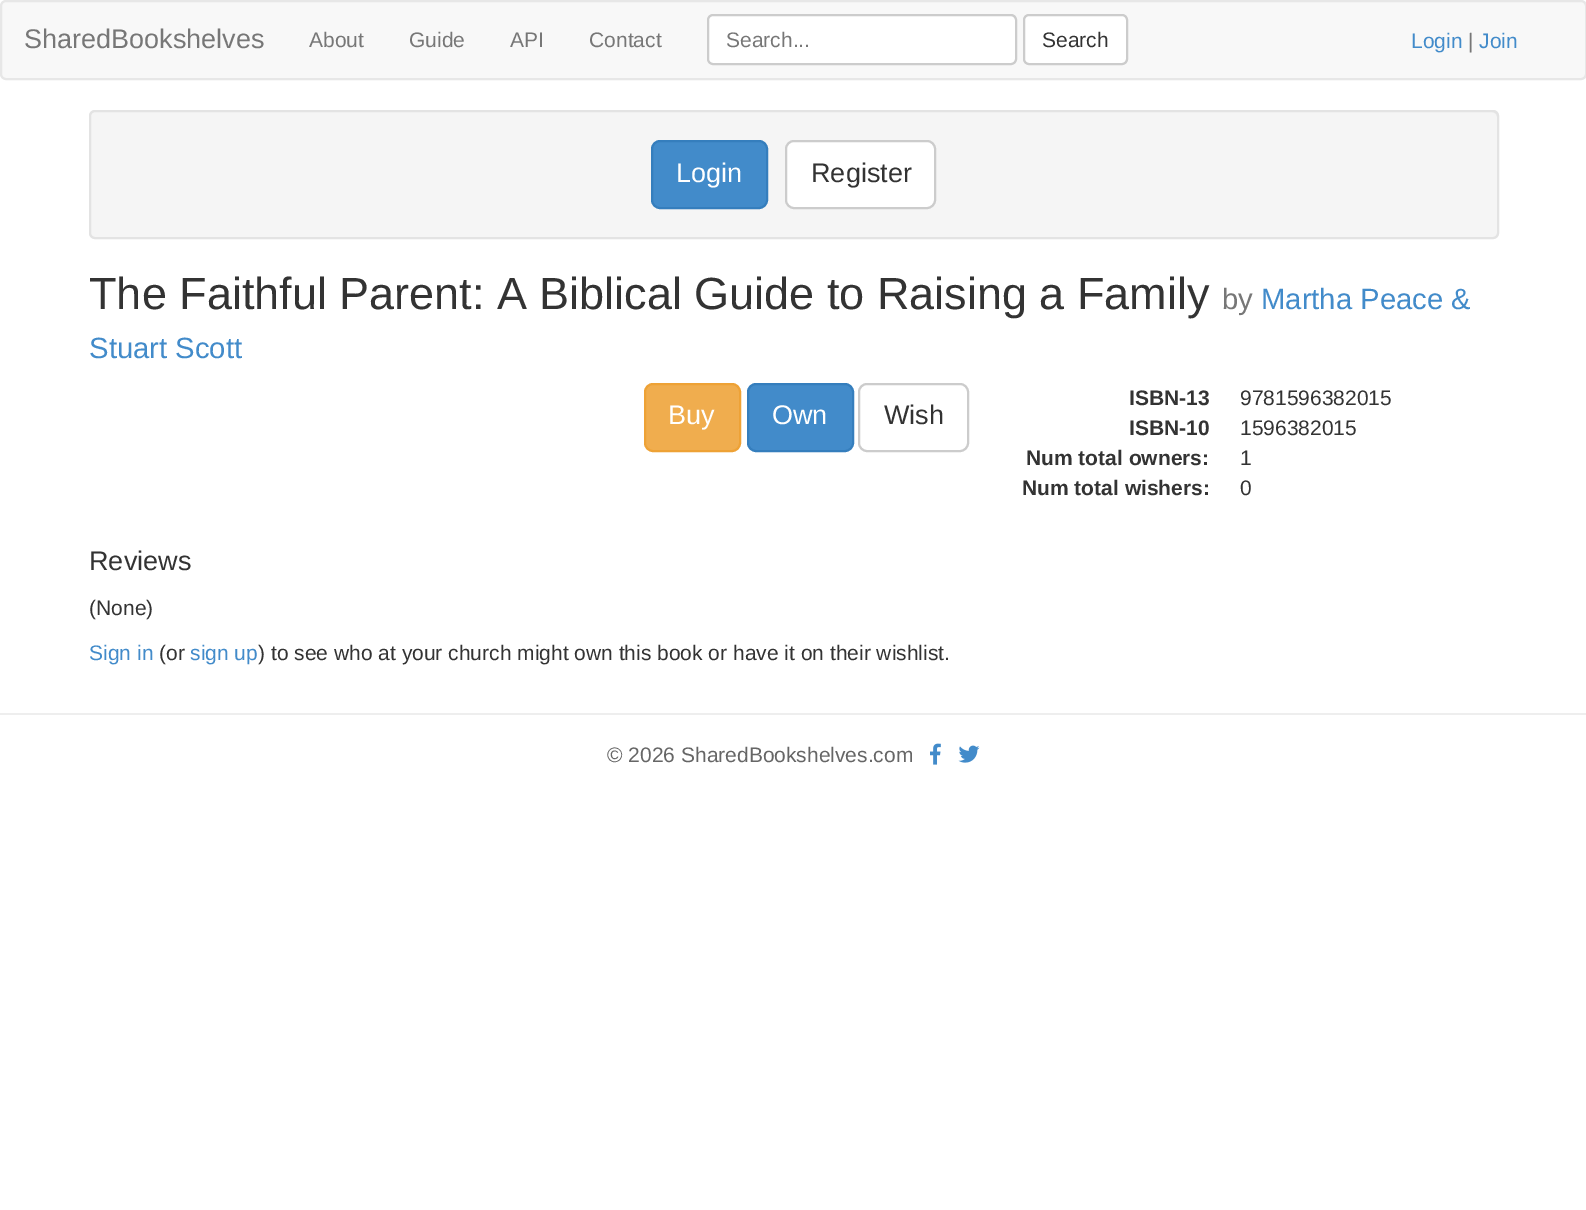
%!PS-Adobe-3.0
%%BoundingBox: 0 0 1586 1210
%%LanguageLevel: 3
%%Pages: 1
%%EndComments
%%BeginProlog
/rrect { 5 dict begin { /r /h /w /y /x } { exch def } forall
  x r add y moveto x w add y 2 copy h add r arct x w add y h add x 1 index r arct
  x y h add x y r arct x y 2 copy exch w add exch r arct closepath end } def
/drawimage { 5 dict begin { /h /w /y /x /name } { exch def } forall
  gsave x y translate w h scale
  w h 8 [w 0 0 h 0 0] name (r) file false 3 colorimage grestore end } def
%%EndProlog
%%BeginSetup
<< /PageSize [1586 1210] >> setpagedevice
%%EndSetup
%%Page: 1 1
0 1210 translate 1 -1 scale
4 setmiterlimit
1 setgray
0 0 1586 1210 rectfill
0.973 setgray
1 1 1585 78 5 rrect gsave fill grestore
0.906 setgray
2 setlinewidth
stroke
1 setgray
707 14 310 51 6 rrect fill
0.925 setgray
newpath 712 16 moveto 1011 16 lineto 1013 16 1016 19 1016 21 curveto 1016 18 1014 15 1011 15 curveto 713 15 lineto 710 15 708 18 708 21 curveto 708 19 710 16 712 16 curveto closepath fill
0.8 setgray
708 15 308 49 5 rrect stroke
1 setgray
1024 15 103 49 5 rrect gsave fill grestore
0.8 setgray
stroke
0.961 setgray
89 110 1410 129 6 rrect fill
0.914 setgray
newpath 94 112 moveto 1492 112 lineto 1495 112 1497 115 1497 117 curveto 1497 114 1495 111 1492 111 curveto 95 111 lineto 92 111 90 114 90 117 curveto 90 115 92 112 94 112 curveto closepath fill
0.89 setgray
90 111 1408 127 5 rrect stroke
0.259 0.545 0.792 setrgbcolor
652 141 115 67 8 rrect gsave fill grestore
0.208 0.494 0.741 setrgbcolor
stroke
1 setgray
786 141 149 67 8 rrect gsave fill grestore
0.8 setgray
stroke
0.941 0.678 0.306 setrgbcolor
645 384 95 67 8 rrect gsave fill grestore
0.933 0.635 0.212 setrgbcolor
stroke
0.259 0.545 0.792 setrgbcolor
748 384 105 67 8 rrect gsave fill grestore
0.208 0.494 0.741 setrgbcolor
stroke
0.8 setgray
859 384 109 67 8 rrect stroke
0.933 setgray
0 713 1586 2 rectfill
(images/1.raw) 930 743 11 22 drawimage
(images/2.raw) 958 745 22 18 drawimage
/LiberationSans-Regular [27 0 0 -27 0 0] selectfont
0.467 setgray
24 48 moveto (SharedBookshelves) show
/LiberationSans-Regular [21 0 0 -21 0 0] selectfont
309 47 moveto (About) show
409 47 moveto (Guide) show
510 47 moveto (API) show
589 47 moveto (Contact) show
726 47 moveto (Search...) show
0.2 setgray
1042 47 moveto (Search) show
0.259 0.545 0.792 setrgbcolor
1411 48 moveto (Login) show
0.467 setgray
1468 48 moveto (|) show
0.259 0.545 0.792 setrgbcolor
1479 48 moveto (Join) show
/LiberationSans-Regular [27 0 0 -27 0 0] selectfont
1 setgray
676 182 moveto (Login) show
0.2 setgray
811 182 moveto (Register) show
/LiberationSans-Regular [45 0 0 -45 0 0] selectfont
89 309 moveto (The Faithful Parent: A Biblical Guide to Raising a Family) show
/LiberationSans-Regular [29.25 0 0 -29.25 0 0] selectfont
0.467 setgray
1222 309 moveto (by) show
0.259 0.545 0.792 setrgbcolor
1261 309 moveto (Martha Peace &) show
89 358 moveto (Stuart Scott) show
/LiberationSans-Regular [27 0 0 -27 0 0] selectfont
1 setgray
668 424 moveto (Buy) show
772 424 moveto (Own) show
0.2 setgray
884 424 moveto (Wish) show
/LiberationSans-Bold [21 0 0 -21 0 0] selectfont
1129 405 moveto (ISBN-13) show
/LiberationSans-Regular [21 0 0 -21 0 0] selectfont
1240 405 moveto (9781596382015) show
/LiberationSans-Bold [21 0 0 -21 0 0] selectfont
1129 435 moveto (ISBN-10) show
/LiberationSans-Regular [21 0 0 -21 0 0] selectfont
1240 435 moveto (1596382015) show
/LiberationSans-Bold [21 0 0 -21 0 0] selectfont
1026 465 moveto (Num total owners:) show
/LiberationSans-Regular [21 0 0 -21 0 0] selectfont
1240 465 moveto (1) show
/LiberationSans-Bold [21 0 0 -21 0 0] selectfont
1022 495 moveto (Num total wishers:) show
/LiberationSans-Regular [21 0 0 -21 0 0] selectfont
1240 495 moveto (0) show
/LiberationSans-Regular [27 0 0 -27 0 0] selectfont
89 570 moveto (Reviews) show
/LiberationSans-Regular [21 0 0 -21 0 0] selectfont
89 615 moveto (\(None\)) show
0.259 0.545 0.792 setrgbcolor
89 660 moveto (Sign in) show
0.2 setgray
159 660 moveto (\(or) show
0.259 0.545 0.792 setrgbcolor
190 660 moveto (sign up) show
0.2 setgray
258 660 moveto (\) to see who at your church might own this book or have it on their wishlist.) show
0.4 setgray
607 762 moveto (© 2026 SharedBookshelves.com) show
showpage
%%EOF
